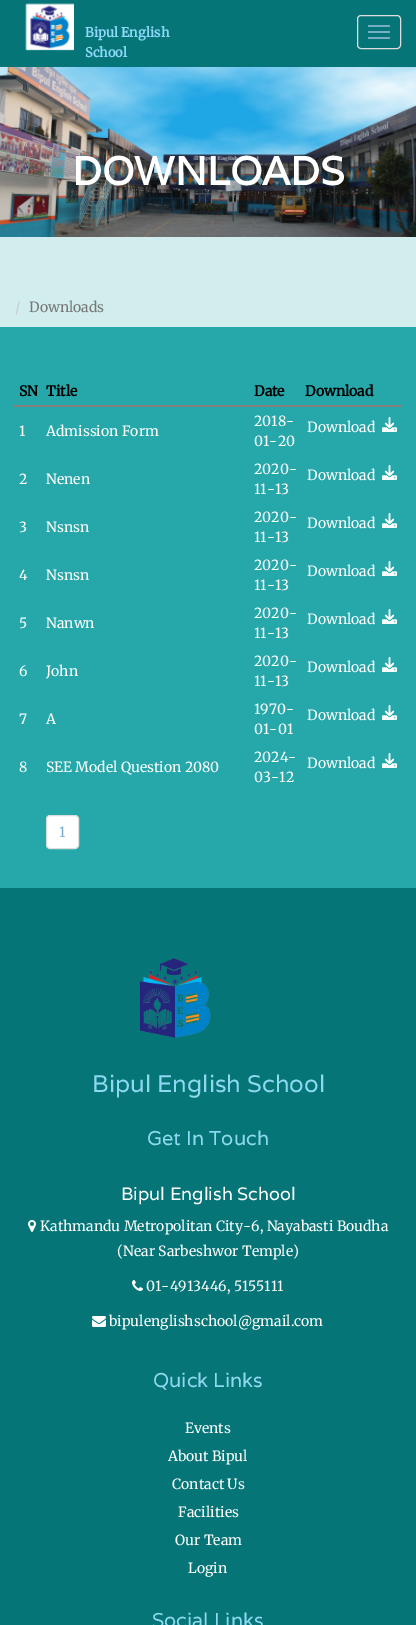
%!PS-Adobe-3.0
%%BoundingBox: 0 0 416 1625
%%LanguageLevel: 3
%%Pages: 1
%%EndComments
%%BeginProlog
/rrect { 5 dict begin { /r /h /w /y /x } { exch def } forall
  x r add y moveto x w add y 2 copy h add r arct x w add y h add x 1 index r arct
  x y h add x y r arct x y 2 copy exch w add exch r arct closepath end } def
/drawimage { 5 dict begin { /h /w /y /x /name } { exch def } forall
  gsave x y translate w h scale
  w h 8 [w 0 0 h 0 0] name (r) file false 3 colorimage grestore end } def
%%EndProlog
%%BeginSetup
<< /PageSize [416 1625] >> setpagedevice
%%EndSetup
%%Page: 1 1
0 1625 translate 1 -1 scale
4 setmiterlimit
0.024 0.459 0.467 setrgbcolor
0 0 416 1625 rectfill
(images/1.raw) 25 3 49 48 drawimage
0.867 setgray
357.5 15.5 43 33 3.5 rrect stroke
0.471 0.678 0.788 setrgbcolor
368 25 22 2 1 rrect fill
368 31 22 2 1 rrect fill
368 37 22 2 1 rrect fill
(images/2.raw) 0 67 416 170 drawimage
0.149 0.659 0.671 setrgbcolor
0 327 416 561 rectfill
0.82 0.929 0.929 setrgbcolor
0 237 416 90 rectfill
0.502 setgray
14 405 388 2 rectfill
(images/3.raw) 382 417 15 15 drawimage
(images/3.raw) 382 465 15 15 drawimage
(images/3.raw) 382 513 15 15 drawimage
(images/3.raw) 382 561 15 15 drawimage
(images/3.raw) 382 609 15 15 drawimage
(images/3.raw) 382 657 15 15 drawimage
(images/3.raw) 382 705 15 15 drawimage
(images/3.raw) 382 753 15 15 drawimage
1 setgray
46.5 815.5 32 33 3.5 rrect gsave fill grestore
0.867 setgray
stroke
(images/4.raw) 139 958 72 80 drawimage
(images/5.raw) 28 1220 8 12 drawimage
(images/6.raw) 132 1280 11 11 drawimage
(images/7.raw) 92 1316 14 11 drawimage
/Merriweather-Bold [13 0 0 -13 0 0] selectfont
0.553 0.847 0.973 setrgbcolor
85 37 moveto (Bipul English) show
85 57 moveto (School) show
/Varela-Bold [40 0 0 -40 0 0] selectfont
1 setgray
72 185 moveto (DOWNLOADS) show
/Merriweather-Light [14 0 0 -14 0 0] selectfont
0.8 setgray
15 312 moveto (/) show
0.467 setgray
29 312 moveto (Downloads) show
/Merriweather-Bold [14 0 0 -14 0 0] selectfont
0 setgray
19 396 moveto (SN) show
46 396 moveto (Title) show
254 396 moveto (Date) show
305 396 moveto (Download) show
/Merriweather-Light [14 0 0 -14 0 0] selectfont
1 setgray
19 436 moveto (1) show
46 436 moveto (Admission Form) show
254 426 moveto (2018-) show
254 446 moveto (01-20) show
307 432 moveto (Download) show
19 484 moveto (2) show
46 484 moveto (Nenen) show
254 474 moveto (2020-) show
254 494 moveto (11-13) show
307 480 moveto (Download) show
19 532 moveto (3) show
46 532 moveto (Nsnsn) show
254 522 moveto (2020-) show
254 542 moveto (11-13) show
307 528 moveto (Download) show
19 580 moveto (4) show
46 580 moveto (Nsnsn) show
254 570 moveto (2020-) show
254 590 moveto (11-13) show
307 576 moveto (Download) show
19 628 moveto (5) show
46 628 moveto (Nanwn) show
254 618 moveto (2020-) show
254 638 moveto (11-13) show
307 624 moveto (Download) show
19 676 moveto (6) show
46 676 moveto (John) show
254 666 moveto (2020-) show
254 686 moveto (11-13) show
307 672 moveto (Download) show
19 724 moveto (7) show
46 724 moveto (A) show
254 714 moveto (1970-) show
254 734 moveto (01-01) show
307 720 moveto (Download) show
19 772 moveto (8) show
46 772 moveto (SEE Model Question 2080) show
254 762 moveto (2024-) show
254 782 moveto (03-12) show
307 768 moveto (Download) show
0.471 0.678 0.788 setrgbcolor
59 837 moveto (1) show
/Varela-Regular [24 0 0 -24 0 0] selectfont
0.557 0.851 0.949 setrgbcolor
92 1092 moveto (Bipul English School) show
/Varela-Regular [20 0 0 -20 0 0] selectfont
147 1145 moveto (Get In Touch) show
/Varela-Regular [18 0 0 -18 0 0] selectfont
1 setgray
121 1200 moveto (Bipul English School) show
/Merriweather-Light [14 0 0 -14 0 0] selectfont
40 1231 moveto (Kathmandu Metropolitan City-6, Nayabasti Boudha) show
117 1256 moveto (\(Near Sarbeshwor Temple\)) show
146 1291 moveto (01-4913446, 5155111) show
109 1326 moveto (bipulenglishschool@gmail.com) show
/Varela-Regular [20 0 0 -20 0 0] selectfont
0.557 0.851 0.949 setrgbcolor
153 1387 moveto (Quick Links) show
/Merriweather-Light [14 0 0 -14 0 0] selectfont
1 setgray
185 1433 moveto (Events) show
168 1461 moveto (About Bipul) show
172 1489 moveto (Contact Us) show
178 1517 moveto (Facilities) show
175 1545 moveto (Our Team) show
188 1573 moveto (Login) show
/Varela-Regular [20 0 0 -20 0 0] selectfont
0.557 0.851 0.949 setrgbcolor
152 1627 moveto (Social Links) show
showpage
%%EOF
